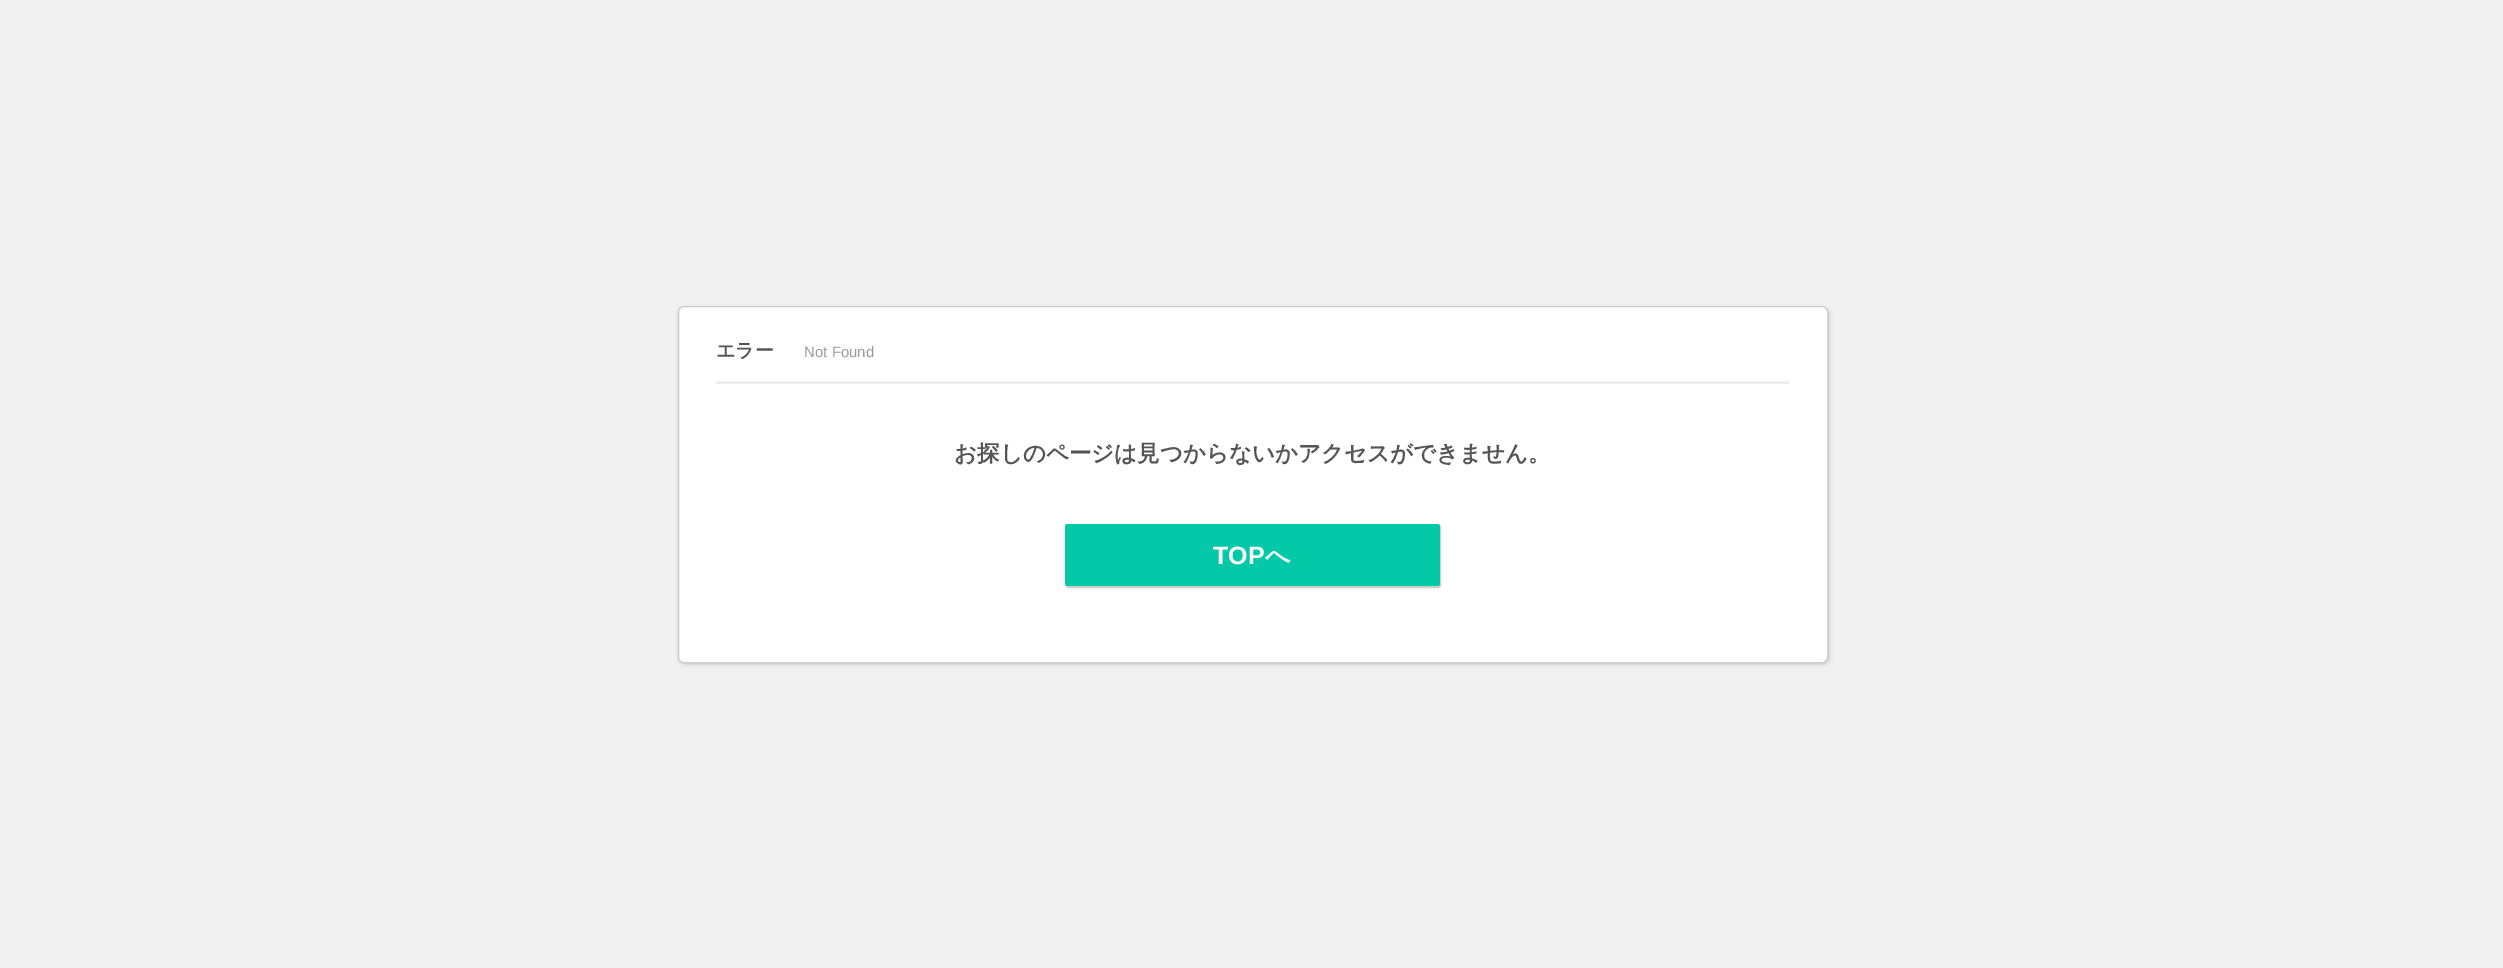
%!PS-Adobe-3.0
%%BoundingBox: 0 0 2503 968
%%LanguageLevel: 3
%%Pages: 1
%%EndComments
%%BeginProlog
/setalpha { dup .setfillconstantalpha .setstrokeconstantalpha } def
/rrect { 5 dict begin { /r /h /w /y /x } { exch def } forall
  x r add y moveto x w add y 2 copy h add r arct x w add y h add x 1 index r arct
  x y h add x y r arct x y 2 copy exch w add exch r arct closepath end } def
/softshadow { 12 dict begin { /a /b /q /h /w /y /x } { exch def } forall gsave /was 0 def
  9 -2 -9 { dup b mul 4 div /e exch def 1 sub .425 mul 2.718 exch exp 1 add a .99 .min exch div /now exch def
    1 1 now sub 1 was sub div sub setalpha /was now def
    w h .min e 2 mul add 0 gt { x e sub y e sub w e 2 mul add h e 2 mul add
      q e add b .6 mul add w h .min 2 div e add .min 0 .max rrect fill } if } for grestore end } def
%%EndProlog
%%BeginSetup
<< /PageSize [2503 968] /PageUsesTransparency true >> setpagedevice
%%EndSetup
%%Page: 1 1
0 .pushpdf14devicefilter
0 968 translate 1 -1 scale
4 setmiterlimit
0.945 setgray
0 0 2503 968 rectfill
0 setgray
679 308 1150 356 6 2 0.2 softshadow
1 setgray
678.5 306.5 1149 356 5.5 rrect gsave fill grestore
0.8 setgray
stroke
0.933 setgray
716 381 1073 3 rectfill
0 setgray
1066 525 375 63 2.5 0.5 0.2 softshadow
0.012 0.788 0.663 setrgbcolor
1065 524 375 62 2.5 rrect fill
/WenQuanYiZenHei-Bold [19 0 0 -19 0 0] selectfont
0.333 setgray
716 357 moveto (エラー) show
/LiberationSans-Regular [15 0 0 -15 0 0] selectfont
0.6 setgray
804 357 moveto (Not Found) show
/WenQuanYiZenHei-Bold [22.5 0 0 -22.5 0 0] selectfont
0.333 setgray
954 461 moveto (お探しのページは見つからないかアクセスができません。) show
/LiberationSans-Bold [25 0 0 -25 0 0] selectfont
1 setgray
1213 564 moveto (TOP) show
/WenQuanYiZenHei-Bold [25 0 0 -25 0 0] selectfont
1265 564 moveto (へ) show
.poppdf14devicefilter showpage
%%EOF
